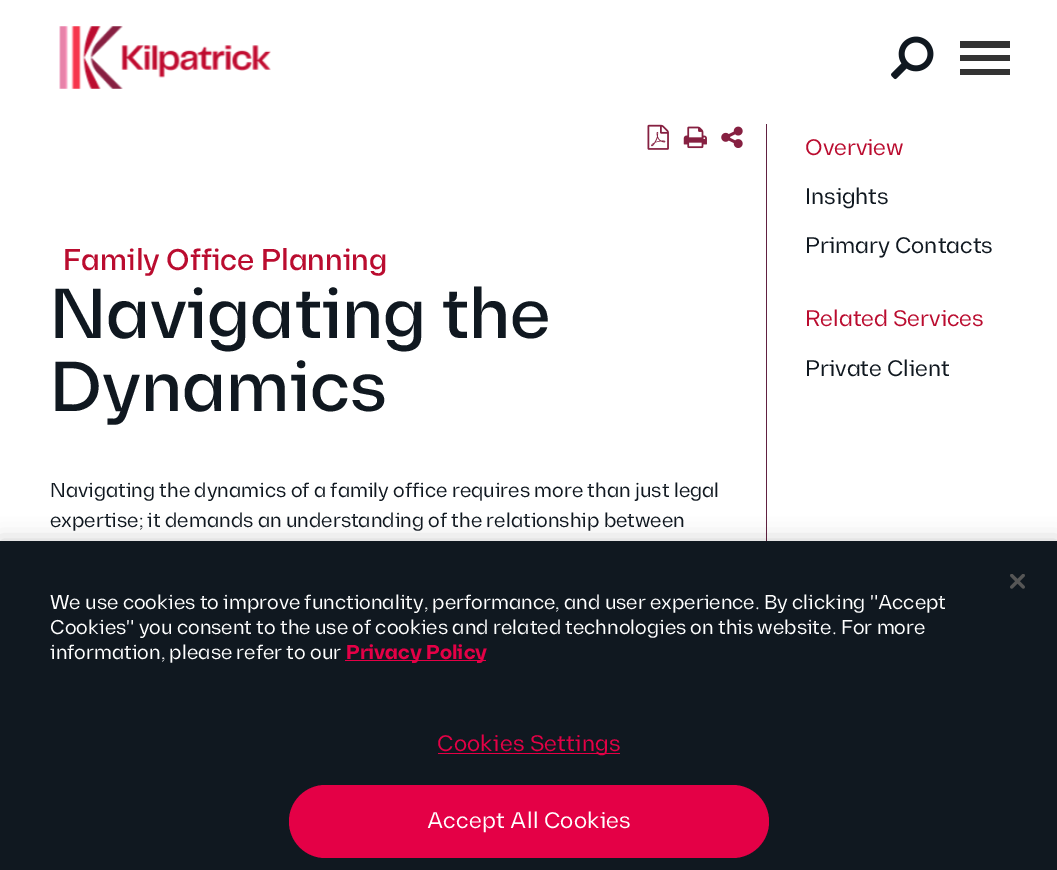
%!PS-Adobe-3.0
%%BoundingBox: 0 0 1057 870
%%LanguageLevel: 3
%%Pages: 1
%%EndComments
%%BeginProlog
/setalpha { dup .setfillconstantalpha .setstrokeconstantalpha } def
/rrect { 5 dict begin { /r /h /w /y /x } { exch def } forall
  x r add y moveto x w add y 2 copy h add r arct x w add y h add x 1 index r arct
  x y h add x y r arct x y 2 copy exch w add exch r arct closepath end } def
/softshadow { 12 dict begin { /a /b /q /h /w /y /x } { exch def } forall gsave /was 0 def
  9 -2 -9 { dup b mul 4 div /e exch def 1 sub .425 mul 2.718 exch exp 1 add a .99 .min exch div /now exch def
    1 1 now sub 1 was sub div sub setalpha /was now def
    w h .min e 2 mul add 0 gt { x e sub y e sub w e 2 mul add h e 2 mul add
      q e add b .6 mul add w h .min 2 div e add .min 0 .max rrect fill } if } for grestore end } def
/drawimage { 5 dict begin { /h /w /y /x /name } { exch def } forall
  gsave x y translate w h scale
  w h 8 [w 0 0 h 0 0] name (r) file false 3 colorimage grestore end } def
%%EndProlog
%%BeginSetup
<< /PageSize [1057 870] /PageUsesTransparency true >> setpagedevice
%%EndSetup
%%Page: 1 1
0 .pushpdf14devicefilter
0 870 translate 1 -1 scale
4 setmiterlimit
1 setgray
0 0 1057 870 rectfill
(images/1.raw) 59 26 212 63 drawimage
(images/2.raw) 891 36 43 44 drawimage
0.2 setgray
960 55 50 6 rectfill
960 41 50 7 rectfill
960 69 50 6 rectfill
0.38 0.129 0.255 setrgbcolor
766 124 1 417 rectfill
(images/3.raw) 647 124 22 26 drawimage
(images/4.raw) 683 126 24 23 drawimage
(images/5.raw) 721 126 22 22 drawimage
0 setgray
0 541 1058 329 0 11 0.2 softshadow
0.063 0.094 0.125 setrgbcolor
0 541 1057 329 rectfill
(images/6.raw) 1010 574 15 15 drawimage
0.894 0 0.275 setrgbcolor
345 660 141 1 rectfill
438 753 182 1 rectfill
289 785 480 73 36.5 rrect fill
/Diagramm-Medium [30 0 0 -30 0 0] selectfont
0.729 0.047 0.184 setrgbcolor
63 270 moveto (Family Office Planning) show
/Diagramm-Medium [70.5 0 0 -70.5 0 0] selectfont
0.063 0.094 0.125 setrgbcolor
50 338 moveto (Navigating the) show
50 411 moveto (Dynamics) show
/Diagramm-Regular [20 0 0 -20 0 0] selectfont
50 497 moveto (Navigating the dynamics of a family office requires more than just legal) show
50 527 moveto (expertise; it demands an understanding of the relationship between) show
/Diagramm-Regular [22.5 0 0 -22.5 0 0] selectfont
0.729 0.047 0.184 setrgbcolor
805 155 moveto (Overview) show
0.063 0.094 0.125 setrgbcolor
805 204 moveto (Insights) show
805 253 moveto (Primary Contacts) show
0.729 0.047 0.184 setrgbcolor
805 326 moveto (Related Services) show
0.063 0.094 0.125 setrgbcolor
805 376 moveto (Private Client) show
/Diagramm-Regular [20 0 0 -20 0 0] selectfont
1 setgray
50 609 moveto (We use cookies to improve functionality, performance, and user experience. By clicking "Accept) show
50 634 moveto (Cookies" you consent to the use of cookies and related technologies on this website. For more) show
50 659 moveto (information, please refer to our) show
/Diagramm-Bold [20 0 0 -20 0 0] selectfont
0.894 0 0.275 setrgbcolor
346 659 moveto (Privacy Policy) show
/Diagramm-Regular [22.5 0 0 -22.5 0 0] selectfont
437 751 moveto 0.25 0 (Cookies Settings) ashow
1 setgray
427 828 moveto 0.25 0 (Accept All Cookies) ashow
.poppdf14devicefilter showpage
%%EOF
